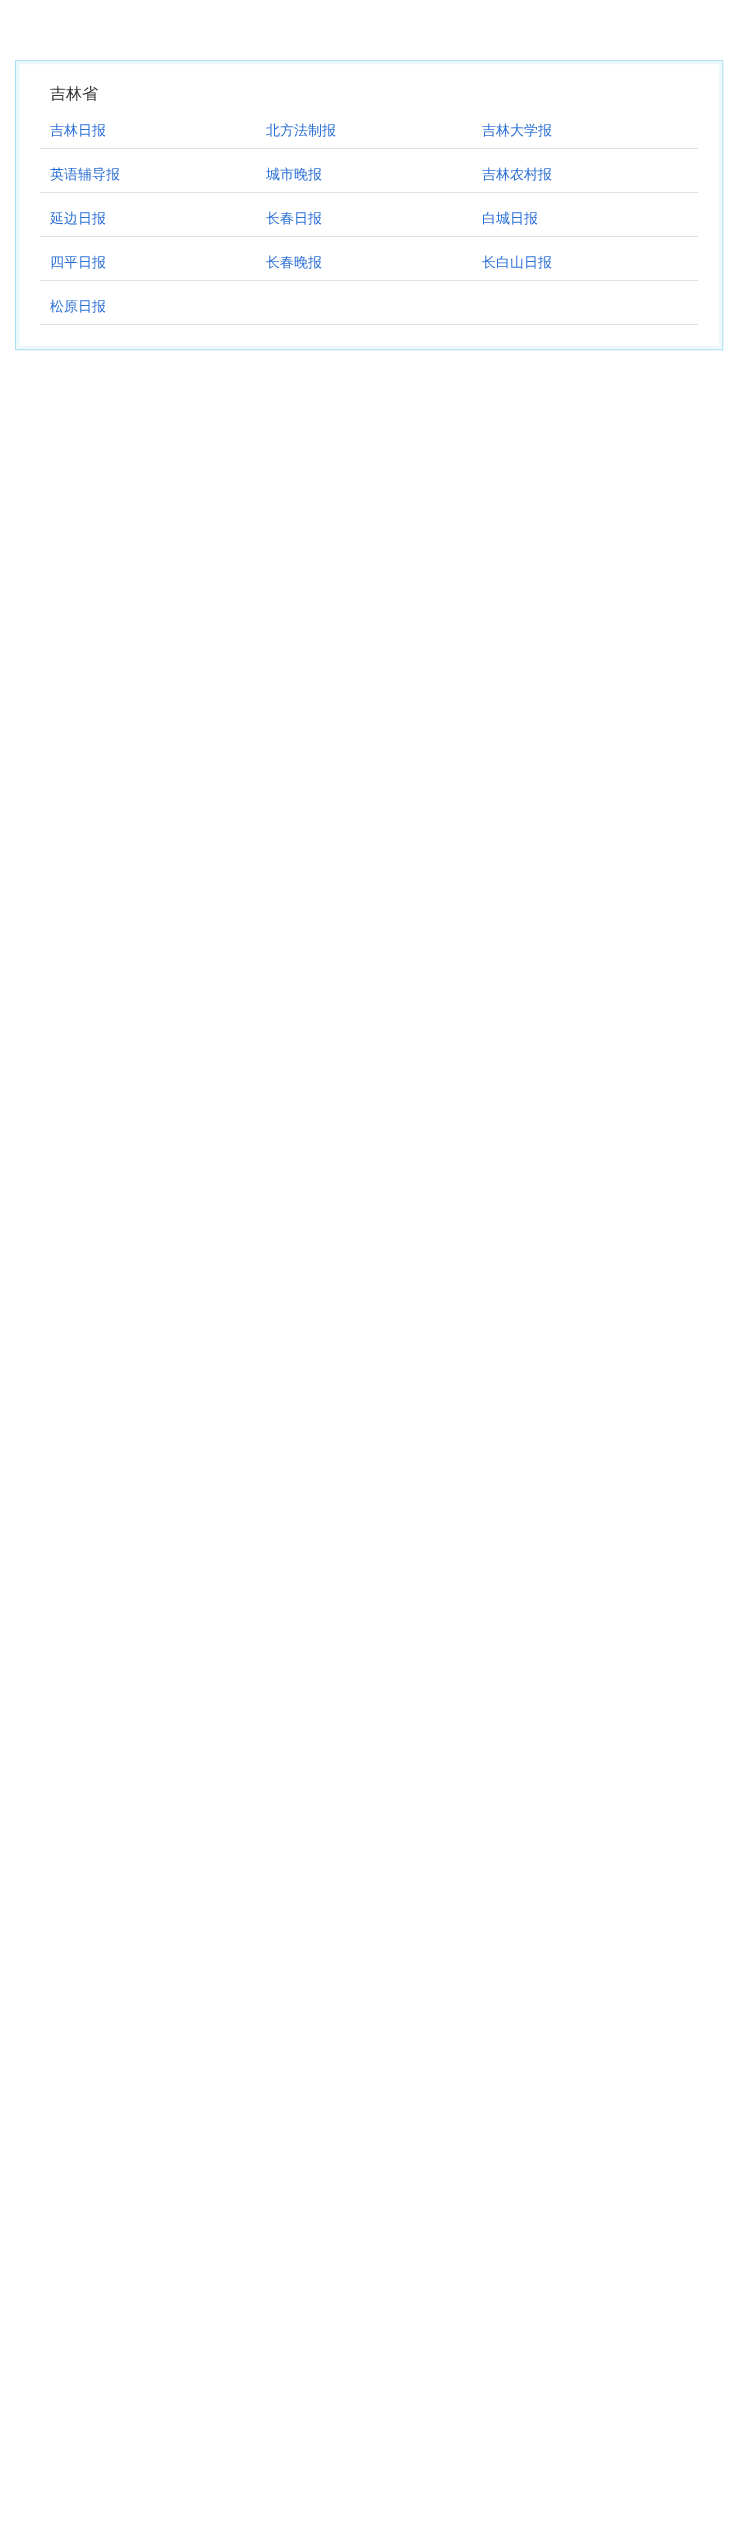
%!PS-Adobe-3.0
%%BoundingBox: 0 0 738 2548
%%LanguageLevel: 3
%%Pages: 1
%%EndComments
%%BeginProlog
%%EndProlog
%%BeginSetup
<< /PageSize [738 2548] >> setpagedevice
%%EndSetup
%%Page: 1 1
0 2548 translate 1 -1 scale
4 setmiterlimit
1 setgray
0 0 738 2548 rectfill
0.671 0.878 0.949 setrgbcolor
15.5 60.5 707 289 rectstroke
0.922 0.973 0.988 setrgbcolor
3 setlinewidth
17.5 62.5 703 285 rectstroke
0.875 setgray
40 148 658 1 rectfill
40 192 658 1 rectfill
40 236 658 1 rectfill
40 280 658 1 rectfill
40 324 658 1 rectfill
/WenQuanYiZenHei-Medium [16 0 0 -16 0 0] selectfont
0.2 setgray
50 99 moveto (吉林省) show
/WenQuanYiZenHei-Medium [14 0 0 -14 0 0] selectfont
0.165 0.435 0.843 setrgbcolor
50 135 moveto (吉林日报) show
266 135 moveto (北方法制报) show
482 135 moveto (吉林大学报) show
50 179 moveto (英语辅导报) show
266 179 moveto (城市晚报) show
482 179 moveto (吉林农村报) show
50 223 moveto (延边日报) show
266 223 moveto (长春日报) show
482 223 moveto (白城日报) show
50 267 moveto (四平日报) show
266 267 moveto (长春晚报) show
482 267 moveto (长白山日报) show
50 311 moveto (松原日报) show
showpage
%%EOF
